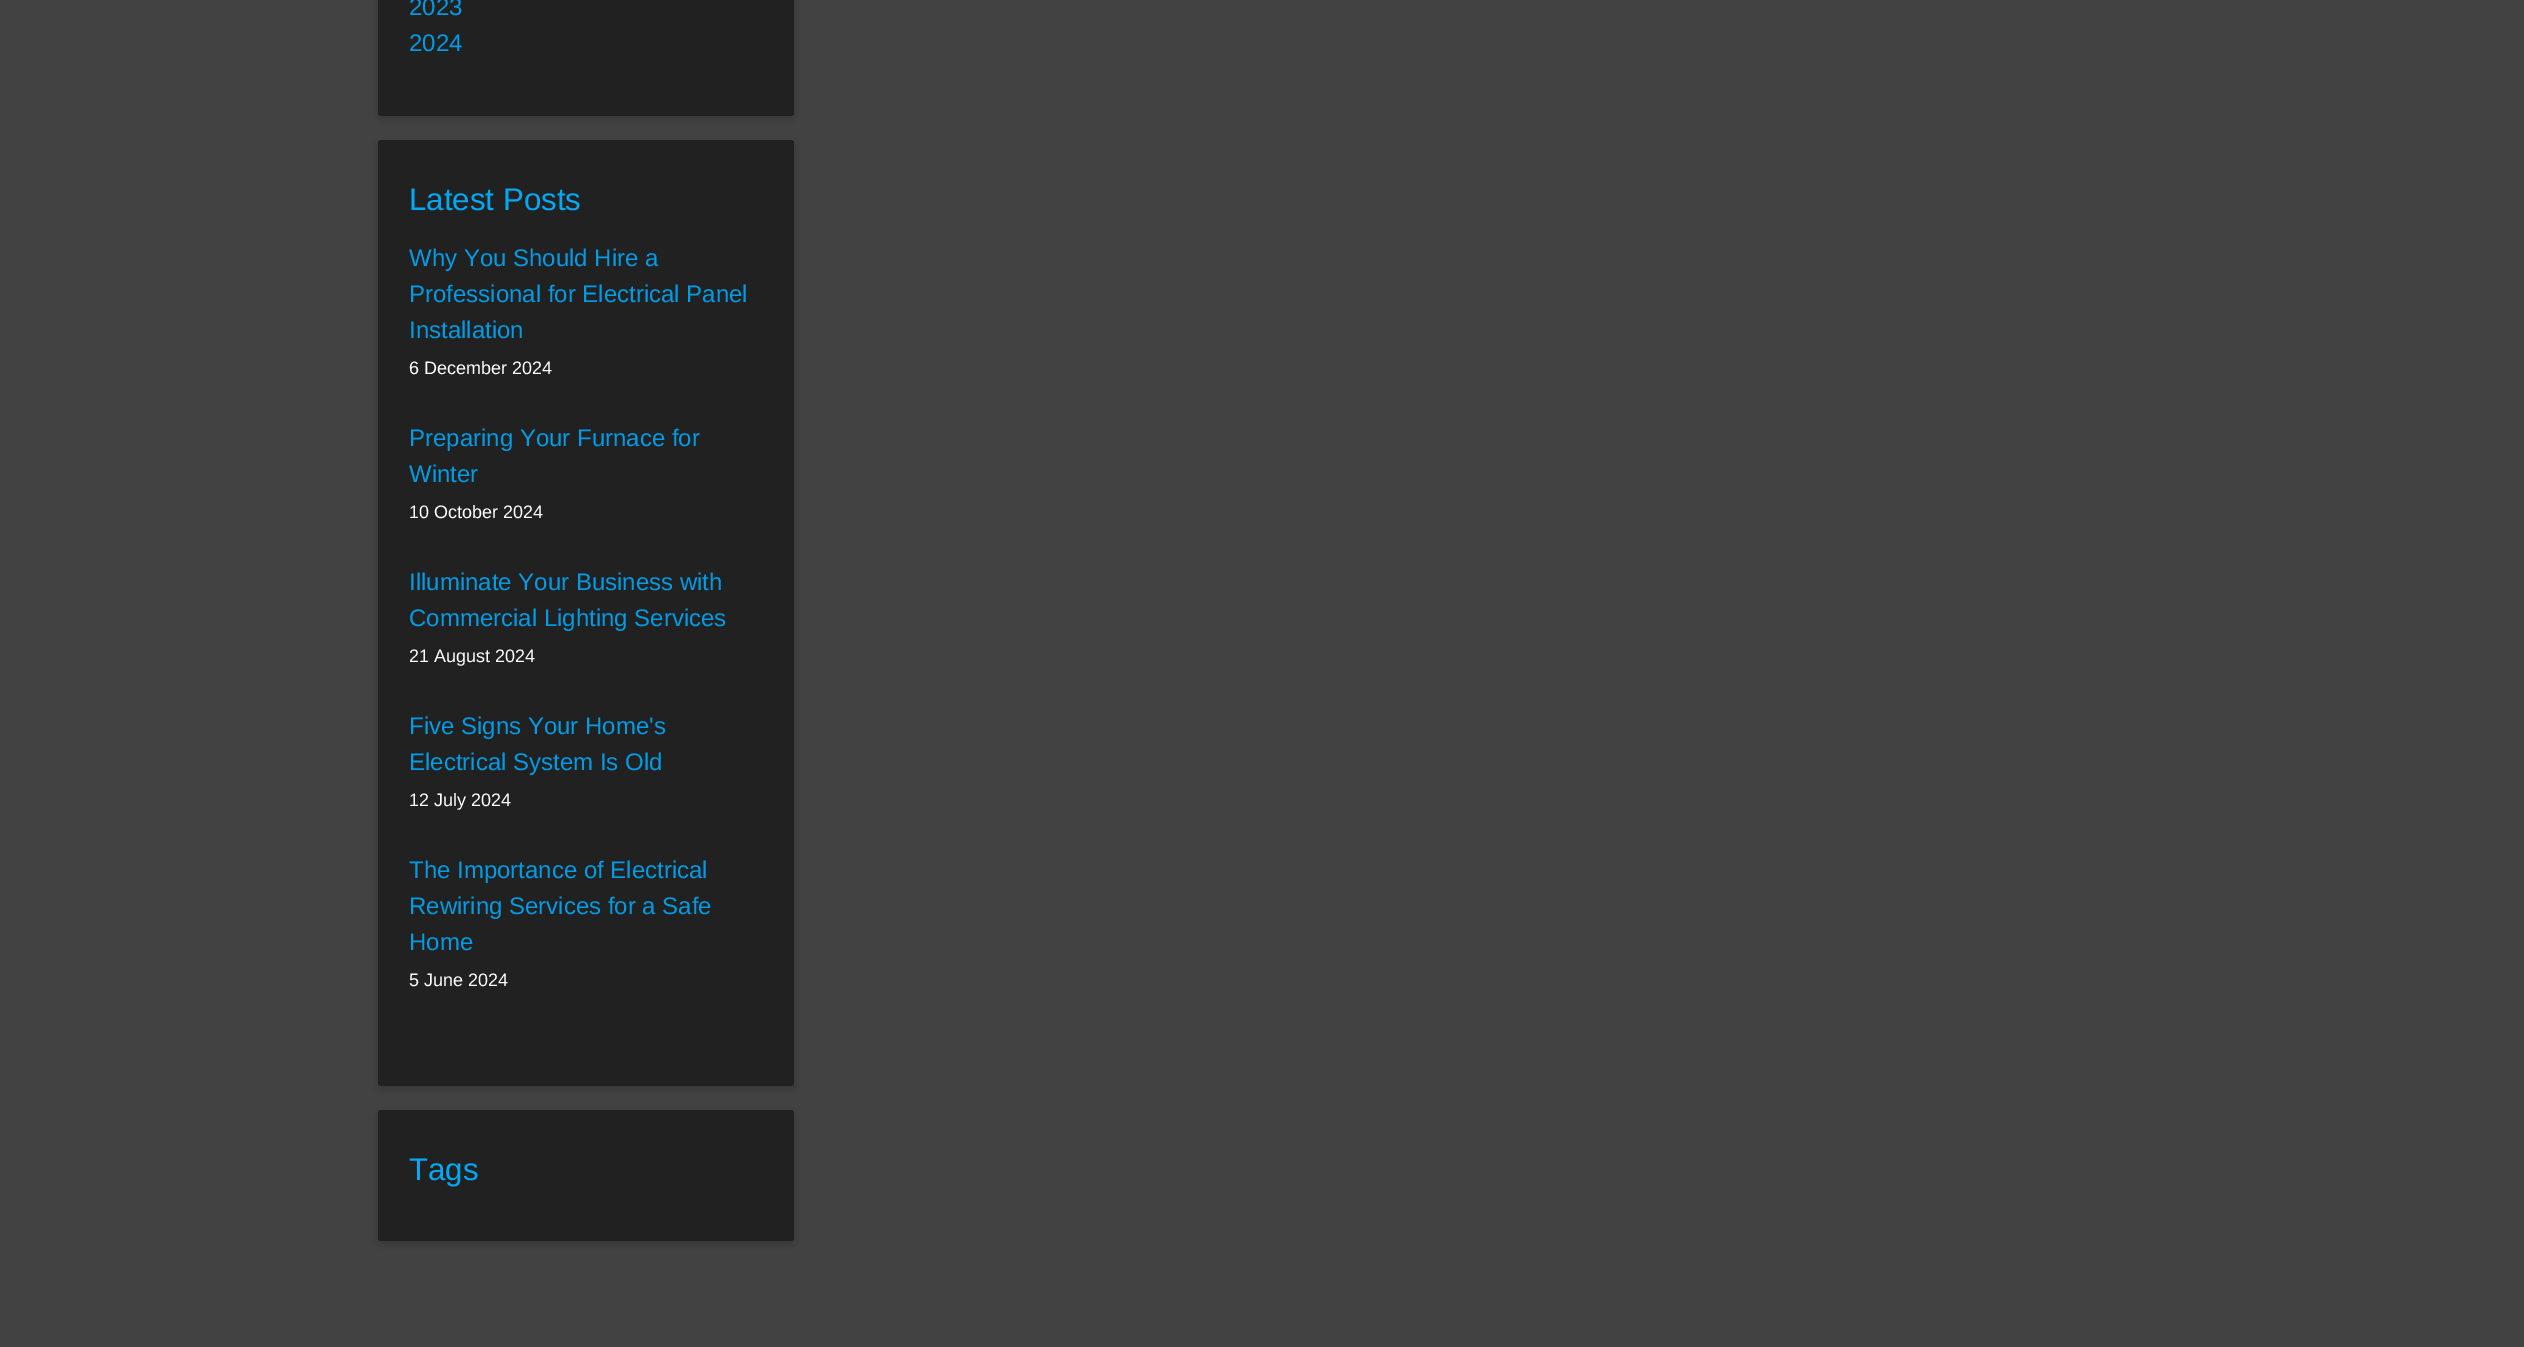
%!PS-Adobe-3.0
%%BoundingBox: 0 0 2524 1347
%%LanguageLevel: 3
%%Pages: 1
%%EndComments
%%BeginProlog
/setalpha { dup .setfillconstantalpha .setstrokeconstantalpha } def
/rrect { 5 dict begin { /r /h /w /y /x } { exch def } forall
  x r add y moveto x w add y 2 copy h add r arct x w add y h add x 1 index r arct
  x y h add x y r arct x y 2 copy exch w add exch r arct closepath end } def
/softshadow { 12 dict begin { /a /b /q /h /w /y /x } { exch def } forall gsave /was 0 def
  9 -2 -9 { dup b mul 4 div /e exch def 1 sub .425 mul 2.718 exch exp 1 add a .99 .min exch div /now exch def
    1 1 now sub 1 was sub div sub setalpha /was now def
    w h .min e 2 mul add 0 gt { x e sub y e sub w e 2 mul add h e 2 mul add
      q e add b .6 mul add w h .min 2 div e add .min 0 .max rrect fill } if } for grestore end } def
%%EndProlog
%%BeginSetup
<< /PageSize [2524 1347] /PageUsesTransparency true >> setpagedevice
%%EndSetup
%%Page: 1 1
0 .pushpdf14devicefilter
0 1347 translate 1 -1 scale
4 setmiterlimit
0.259 setgray
0 0 2524 1347 rectfill
0 setgray
378 -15 416 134 3 4 0.16 softshadow
0.129 setgray
378 -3 416 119 3 rrect fill
0 setgray
378 143 416 946 3 4 0.16 softshadow
0.129 setgray
378 140 416 946 3 rrect fill
0 setgray
378 1113 416 131 3 4 0.16 softshadow
0.129 setgray
378 1110 416 131 3 rrect fill
/LiberationSans-Regular [24 0 0 -24 0 0] selectfont
0.012 0.608 0.898 setrgbcolor
409 15 moveto (2023) show
409 51 moveto (2024) show
/LiberationSans-Regular [31.25 0 0 -31.25 0 0] selectfont
0.012 0.663 0.957 setrgbcolor
409 210 moveto (Latest Posts) show
/LiberationSans-Regular [24 0 0 -24 0 0] selectfont
0.012 0.608 0.898 setrgbcolor
409 266 moveto (Why You Should Hire a) show
409 302 moveto (Professional for Electrical Panel) show
409 338 moveto (Installation) show
/LiberationSans-Regular [18 0 0 -18 0 0] selectfont
1 setgray
409 374 moveto (6 December 2024) show
/LiberationSans-Regular [24 0 0 -24 0 0] selectfont
0.012 0.608 0.898 setrgbcolor
409 446 moveto (Preparing Your Furnace for) show
409 482 moveto (Winter) show
/LiberationSans-Regular [18 0 0 -18 0 0] selectfont
1 setgray
409 518 moveto (10 October 2024) show
/LiberationSans-Regular [24 0 0 -24 0 0] selectfont
0.012 0.608 0.898 setrgbcolor
409 590 moveto (Illuminate Your Business with) show
409 626 moveto (Commercial Lighting Services) show
/LiberationSans-Regular [18 0 0 -18 0 0] selectfont
1 setgray
409 662 moveto (21 August 2024) show
/LiberationSans-Regular [24 0 0 -24 0 0] selectfont
0.012 0.608 0.898 setrgbcolor
409 734 moveto (Five Signs Your Home's) show
409 770 moveto (Electrical System Is Old) show
/LiberationSans-Regular [18 0 0 -18 0 0] selectfont
1 setgray
409 806 moveto (12 July 2024) show
/LiberationSans-Regular [24 0 0 -24 0 0] selectfont
0.012 0.608 0.898 setrgbcolor
409 878 moveto (The Importance of Electrical) show
409 914 moveto (Rewiring Services for a Safe) show
409 950 moveto (Home) show
/LiberationSans-Regular [18 0 0 -18 0 0] selectfont
1 setgray
409 986 moveto (5 June 2024) show
/LiberationSans-Regular [31.25 0 0 -31.25 0 0] selectfont
0.012 0.663 0.957 setrgbcolor
409 1180 moveto (Tags) show
.poppdf14devicefilter showpage
%%EOF
